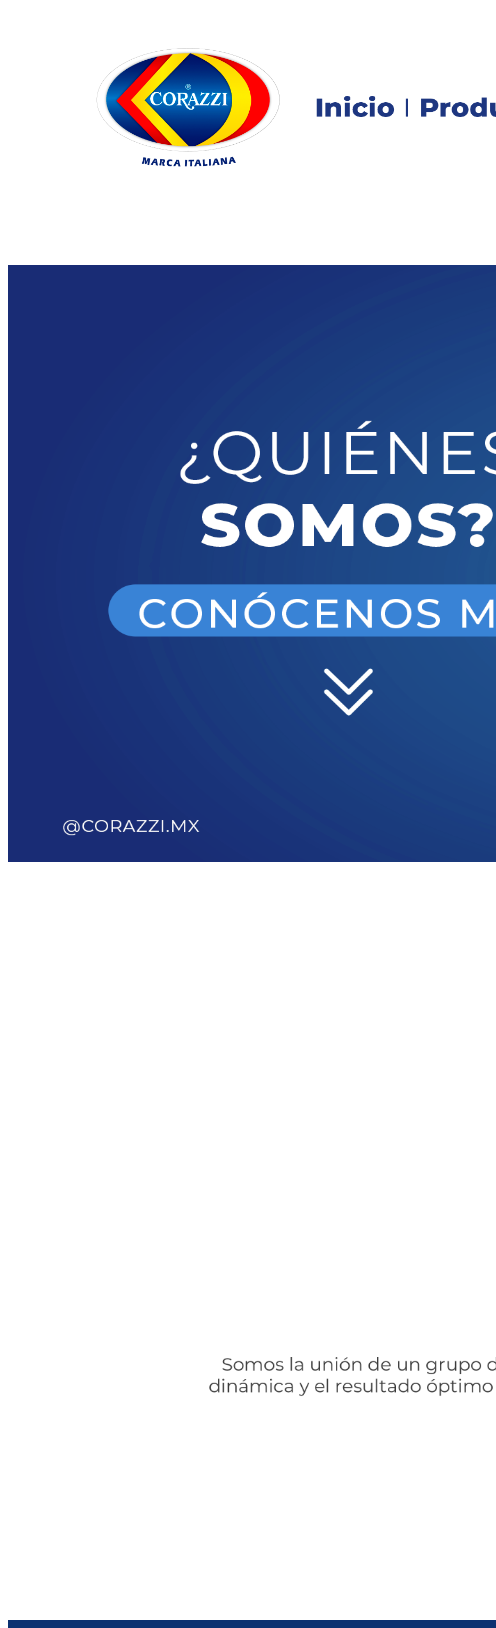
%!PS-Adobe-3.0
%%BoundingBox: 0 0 496 1628
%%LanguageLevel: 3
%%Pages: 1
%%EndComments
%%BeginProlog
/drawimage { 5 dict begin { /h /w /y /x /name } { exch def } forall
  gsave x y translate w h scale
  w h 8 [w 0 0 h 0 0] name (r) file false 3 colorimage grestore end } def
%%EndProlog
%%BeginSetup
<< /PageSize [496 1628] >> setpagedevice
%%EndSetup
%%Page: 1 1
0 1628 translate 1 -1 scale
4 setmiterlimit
1 setgray
0 0 496 1628 rectfill
(images/1.raw) 96 48 184 119 drawimage
(images/2.raw) 316 96 92 21 drawimage
(images/3.raw) 421 97 75 20 drawimage
(images/4.raw) 8 265 488 597 drawimage
(images/5.raw) 209 1357 287 40 drawimage
0.043 0.192 0.443 setrgbcolor
8 1620 488 8 rectfill
showpage
%%EOF
